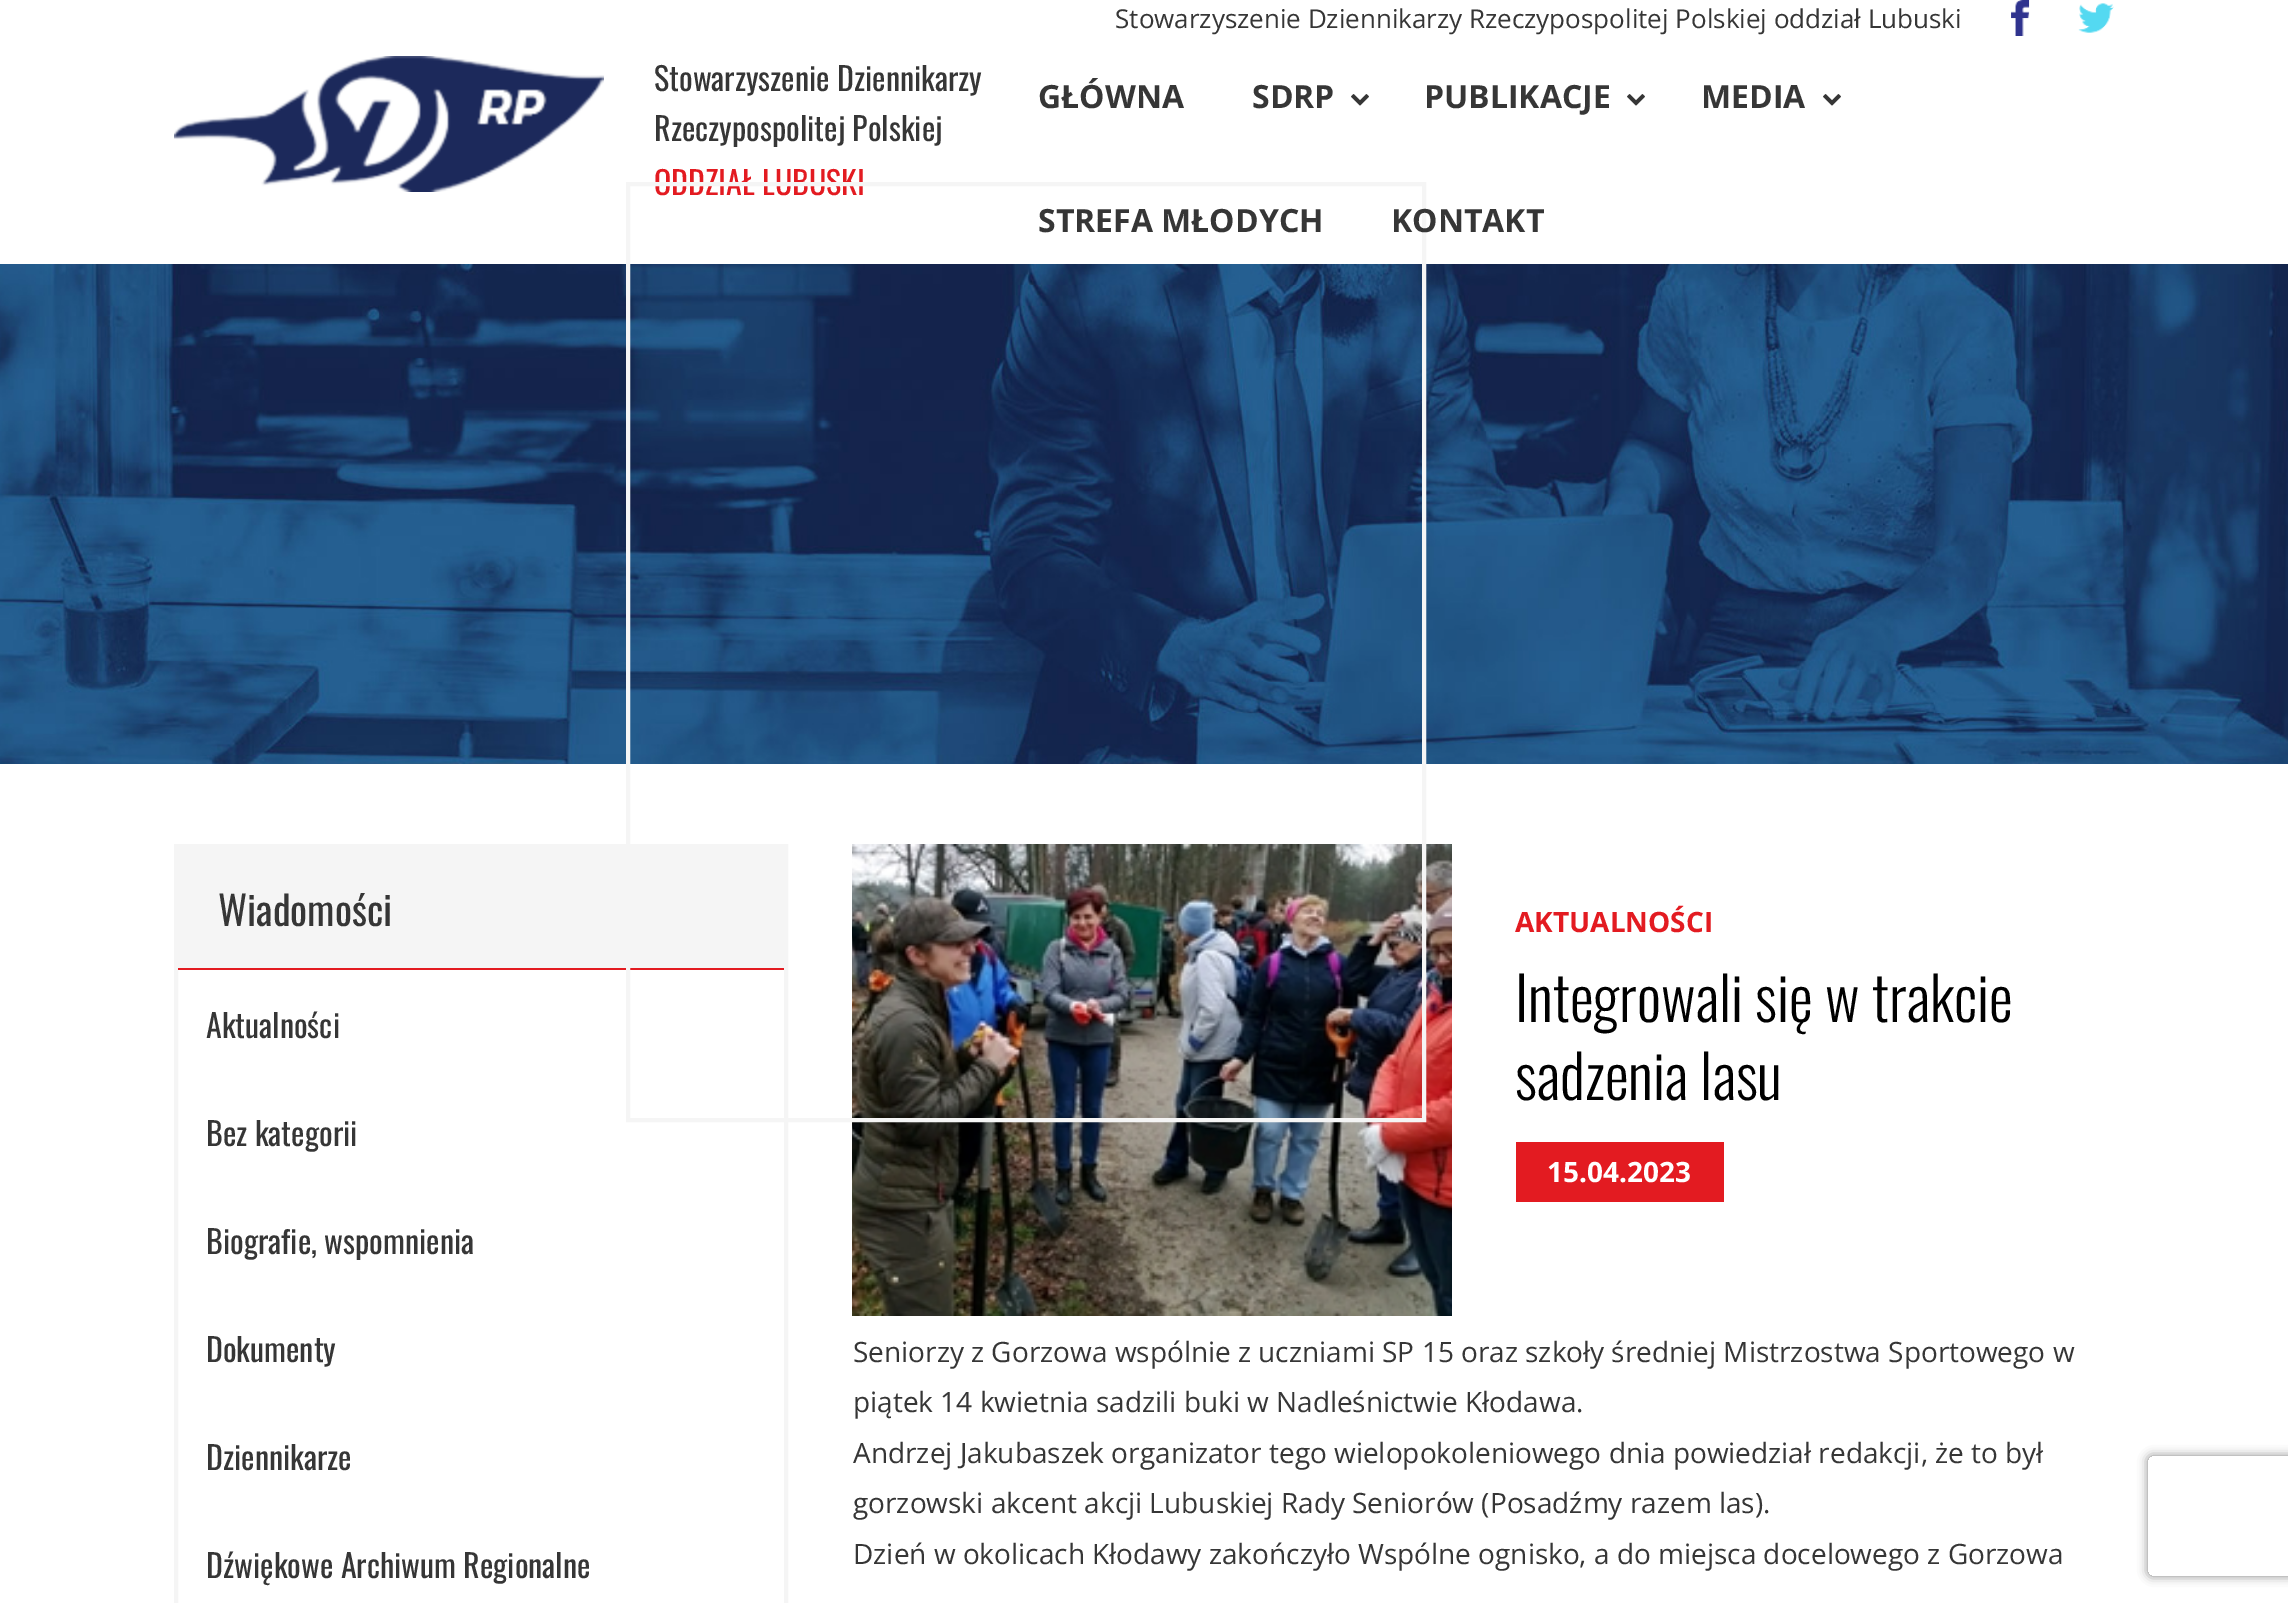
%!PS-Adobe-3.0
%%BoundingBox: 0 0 2288 1603
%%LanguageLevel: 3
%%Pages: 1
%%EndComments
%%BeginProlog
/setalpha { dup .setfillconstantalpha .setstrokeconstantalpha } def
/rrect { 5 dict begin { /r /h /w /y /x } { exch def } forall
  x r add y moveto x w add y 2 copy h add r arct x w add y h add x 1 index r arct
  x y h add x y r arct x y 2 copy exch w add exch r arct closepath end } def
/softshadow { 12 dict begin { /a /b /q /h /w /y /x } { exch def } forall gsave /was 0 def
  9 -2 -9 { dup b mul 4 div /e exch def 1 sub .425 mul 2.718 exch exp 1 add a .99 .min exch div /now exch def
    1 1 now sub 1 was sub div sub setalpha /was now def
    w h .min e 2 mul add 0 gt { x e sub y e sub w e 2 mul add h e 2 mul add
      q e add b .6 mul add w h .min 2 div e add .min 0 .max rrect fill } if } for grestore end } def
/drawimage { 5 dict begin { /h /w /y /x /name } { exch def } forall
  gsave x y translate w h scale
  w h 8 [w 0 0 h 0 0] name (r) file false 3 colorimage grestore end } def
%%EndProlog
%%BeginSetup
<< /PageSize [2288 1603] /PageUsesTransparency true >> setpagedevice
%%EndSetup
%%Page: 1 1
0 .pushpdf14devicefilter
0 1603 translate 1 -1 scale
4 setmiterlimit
1 setgray
0 0 2288 1603 rectfill
(images/1.raw) 174 56 430 136 drawimage
(images/2.raw) 2011 0 19 36 drawimage
(images/3.raw) 2078 3 36 30 drawimage
(images/4.raw) 1351 94 18 12 drawimage
(images/4.raw) 1627 94 18 12 drawimage
(images/4.raw) 1823 94 18 12 drawimage
(images/5.raw) 0 264 2288 500 drawimage
0.961 setgray
4 setlinewidth
176 846 610 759 rectstroke
178 848 606 120 rectfill
0.89 0.106 0.129 setrgbcolor
178 968 606 2 rectfill
(images/6.raw) 852 844 600 472 drawimage
1516 1142 208 60 rectfill
gsave
newpath 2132 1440 moveto 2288 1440 lineto 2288 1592 lineto 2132 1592 lineto closepath 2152 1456 moveto 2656 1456 lineto 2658 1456 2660 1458 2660 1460 curveto 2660 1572 lineto 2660 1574 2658 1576 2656 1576 curveto 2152 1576 lineto 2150 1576 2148 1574 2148 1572 curveto 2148 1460 lineto 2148 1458 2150 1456 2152 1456 curveto closepath eoclip newpath
0.502 setgray
2148 1456 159 120 4 5 1 softshadow
grestore
/Oswald-Regular [32 0 0 -32 0 0] selectfont
0.212 setgray
654 91 moveto (Stowarzyszenie Dziennikarzy) show
654 141 moveto (Rzeczypospolitej Polskiej) show
0.89 0.106 0.129 setrgbcolor
654 195 moveto (ODDZIAŁ LUBUSKI) show
/OpenSans-Regular [26 0 0 -26 0 0] selectfont
0.212 setgray
1115 28 moveto (Stowarzyszenie Dziennikarzy Rzeczypospolitej Polskiej oddział Lubuski) show
/OpenSans-Bold [32 0 0 -32 0 0] selectfont
1038 108 moveto (GŁÓWNA) show
1252 108 moveto (SDRP) show
1424 108 moveto (PUBLIKACJE) show
1701 108 moveto (MEDIA) show
0.961 setgray
628 184 796 936 rectstroke
0.212 setgray
1391 232 moveto (KONTAKT) show
1038 232 moveto (STREFA MŁODYCH) show
/Oswald-Regular [40 0 0 -40 0 0] selectfont
218 926 moveto (Wiadomości) show
/Oswald-Regular [32 0 0 -32 0 0] selectfont
206 1038 moveto (Aktualności) show
206 1146 moveto (Bez kategorii) show
206 1254 moveto (Biografie, wspomnienia) show
206 1362 moveto (Dokumenty) show
206 1470 moveto (Dziennikarze) show
206 1578 moveto (Dźwiękowe Archiwum Regionalne) show
/OpenSans-Bold [28 0 0 -28 0 0] selectfont
0.89 0.106 0.129 setrgbcolor
1515 932 moveto (AKTUALNOŚCI) show
/Oswald-Light [60 0 0 -60 0 0] selectfont
0 setgray
1515 1022 moveto (Integrowali się w trakcie) show
1515 1100 moveto (sadzenia lasu) show
/OpenSans-Bold [28 0 0 -28 0 0] selectfont
1 setgray
1547 1182 moveto (15.04.2023) show
/OpenSans-Regular [28 0 0 -28 0 0] selectfont
0.212 setgray
853 1362 moveto (Seniorzy z Gorzowa wspólnie z uczniami SP 15 oraz szkoły średniej Mistrzostwa Sportowego w) show
853 1412 moveto (piątek 14 kwietnia sadzili buki w Nadleśnictwie Kłodawa.) show
853 1463 moveto (Andrzej Jakubaszek organizator tego wielopokoleniowego dnia powiedział redakcji, że to był) show
853 1513 moveto (gorzowski akcent akcji Lubuskiej Rady Seniorów \(Posadźmy razem las\).) show
853 1564 moveto (Dzień w okolicach Kłodawy zakończyło Wspólne ognisko, a do miejsca docelowego z Gorzowa) show
.poppdf14devicefilter showpage
%%EOF
